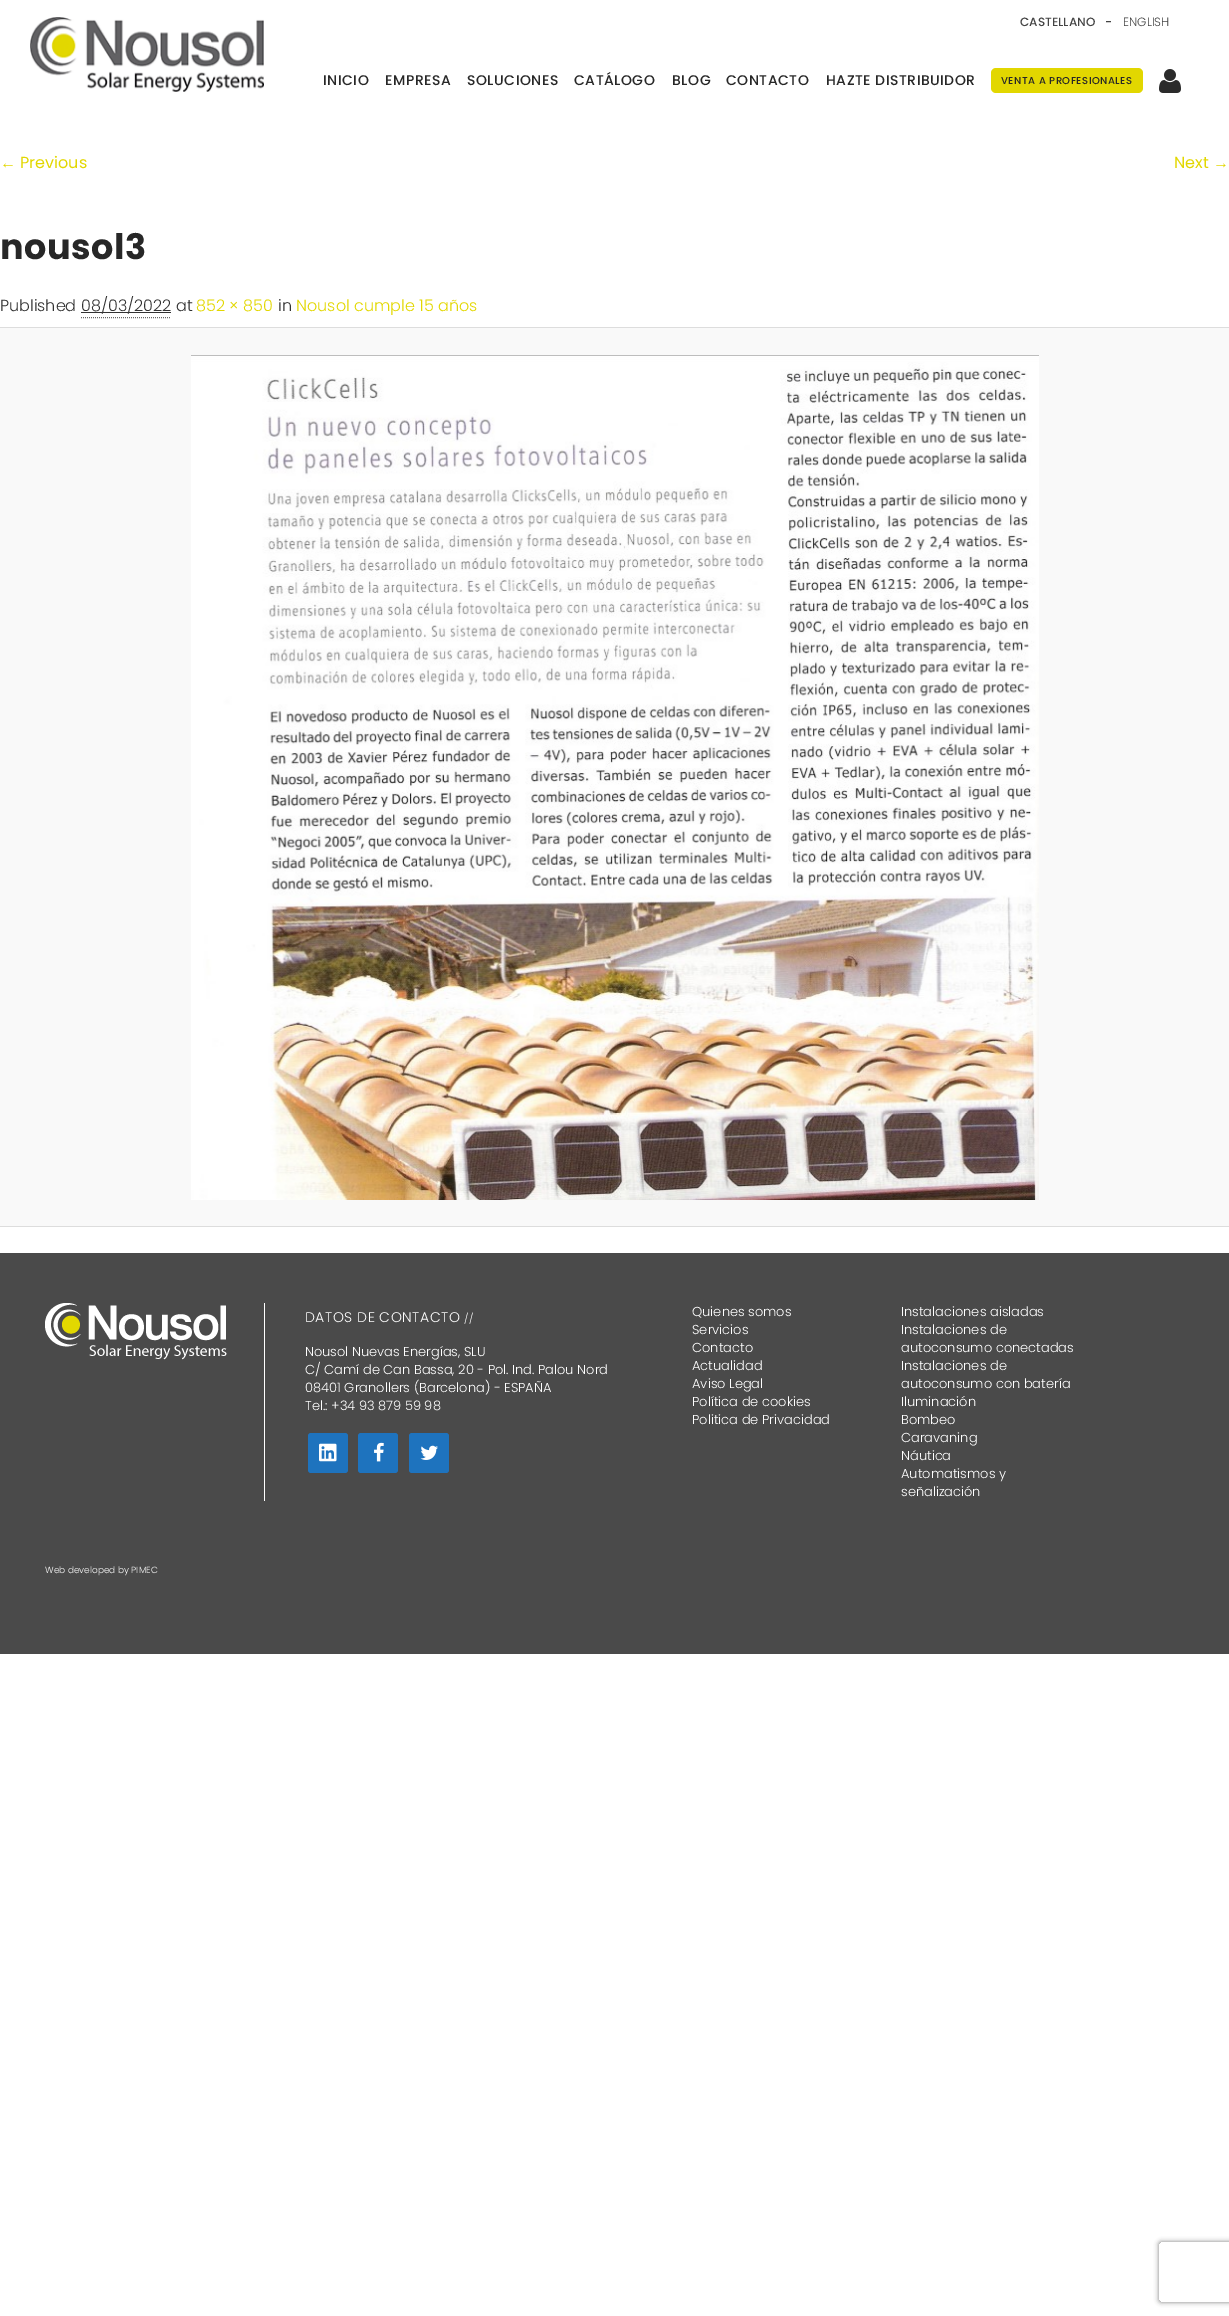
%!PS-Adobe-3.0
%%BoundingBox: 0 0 1229 2316
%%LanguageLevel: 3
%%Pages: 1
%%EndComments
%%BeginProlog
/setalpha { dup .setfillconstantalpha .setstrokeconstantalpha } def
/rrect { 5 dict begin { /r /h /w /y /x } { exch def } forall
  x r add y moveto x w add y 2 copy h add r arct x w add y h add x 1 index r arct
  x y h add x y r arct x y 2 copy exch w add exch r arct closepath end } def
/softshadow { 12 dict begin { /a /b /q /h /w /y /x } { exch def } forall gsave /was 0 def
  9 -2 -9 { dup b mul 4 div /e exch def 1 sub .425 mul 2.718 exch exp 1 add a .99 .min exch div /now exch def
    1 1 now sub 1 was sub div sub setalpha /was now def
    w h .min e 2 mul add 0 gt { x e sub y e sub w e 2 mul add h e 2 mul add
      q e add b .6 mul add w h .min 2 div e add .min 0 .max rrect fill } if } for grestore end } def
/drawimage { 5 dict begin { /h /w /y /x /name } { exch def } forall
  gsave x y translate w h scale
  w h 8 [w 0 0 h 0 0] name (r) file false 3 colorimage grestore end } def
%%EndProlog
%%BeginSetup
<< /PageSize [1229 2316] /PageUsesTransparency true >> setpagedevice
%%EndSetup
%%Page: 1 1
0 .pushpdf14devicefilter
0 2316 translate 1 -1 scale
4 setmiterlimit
1 setgray
0 0 1229 2316 rectfill
(images/1.raw) 30 17 234 75 drawimage
0.886 0.843 0 setrgbcolor
991 68 152 25 5 rrect fill
(images/2.raw) 1159 69 22 24 drawimage
0.4 setgray
[1 1] 0 setdash
newpath 81 317.5 moveto 171 317.5 lineto stroke
0.196 setgray
81 312 90 1 rectfill
0.976 setgray
0 328 1229 898 rectfill
0.867 setgray
0 327 1229 1 rectfill
0 1226 1229 1 rectfill
(images/3.raw) 191 355 848 845 drawimage
0.29 setgray
0 1253 1229 401 rectfill
1 setgray
264 1303 1 198 rectfill
(images/4.raw) 45 1303 182 57 drawimage
0.118 0.451 0.745 setrgbcolor
308 1433 40 40 3 rrect fill
(images/5.raw) 319 1443 18 19 drawimage
358 1433 40 40 3 rrect fill
(images/6.raw) 374 1442 10 20 drawimage
409 1433 40 40 3 rrect fill
(images/7.raw) 420 1445 18 15 drawimage
gsave
newpath 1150 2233 moveto 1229 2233 lineto 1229 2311 lineto 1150 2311 lineto closepath 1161 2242 moveto 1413 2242 lineto 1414 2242 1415 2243 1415 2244 curveto 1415 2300 lineto 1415 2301 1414 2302 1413 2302 curveto 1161 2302 lineto 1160 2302 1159 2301 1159 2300 curveto 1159 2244 lineto 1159 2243 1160 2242 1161 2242 curveto closepath eoclip newpath
0.502 setgray
1159 2242 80 60 2 2.5 1 softshadow
grestore
/Poppins-Medium [12 0 0 -12 0 0] selectfont
0.267 setgray
1020 26 moveto (CASTELLANO) show
1105 26 moveto (-) show
/Poppins-Light [12 0 0 -12 0 0] selectfont
1123 26 moveto (ENGLISH) show
/Poppins-Medium [14 0 0 -14 0 0] selectfont
0.153 setgray
323 85 moveto 0.5 0 (INICIO) ashow
385 85 moveto 0.5 0 (EMPRESA) ashow
467 85 moveto 0.5 0 (SOLUCIONES) ashow
574 85 moveto 0.5 0 (CATÁLOGO) ashow
672 85 moveto 0.5 0 (BLOG) ashow
726 85 moveto 0.5 0 (CONTACTO) ashow
826 85 moveto 0.5 0 (HAZTE DISTRIBUIDOR) ashow
/Poppins-Medium [10 0 0 -10 0 0] selectfont
1001 84 moveto 0.5 0 (VENTA A PROFESIONALES) ashow
/LiberationSans-Regular [16 0 0 -16 0 0] selectfont
0.886 0.843 0 setrgbcolor
0 168 moveto (←) show
/Poppins-Regular [16 0 0 -16 0 0] selectfont
20 168 moveto (Previous) show
1174 168 moveto (Next) show
/LiberationSans-Regular [16 0 0 -16 0 0] selectfont
1213 168 moveto (→) show
/Poppins-Bold [35 0 0 -35 0 0] selectfont
0.153 setgray
0 259 moveto 0.5 0 (nousol3) ashow
/Poppins-Light [16 0 0 -16 0 0] selectfont
0.196 setgray
0 311 moveto (Published) show
81 311 moveto (08/03/2022 at) show
0.886 0.843 0 setrgbcolor
196 311 moveto (852 × 850) show
0.196 setgray
278 311 moveto (in) show
0.886 0.843 0 setrgbcolor
296 311 moveto (Nousol cumple 15 años) show
/Poppins-Light [14 0 0 -14 0 0] selectfont
1 setgray
305 1322 moveto 0.5 0 (DATOS DE CONTACTO) ashow
/Poppins-Light [10 0 0 -10 0 0] selectfont
464 1322 moveto 0.5 0 (//) ashow
/Poppins-Light [13 0 0 -13 0 0] selectfont
305 1356 moveto (Nousol Nuevas Energías, SLU) show
305 1374 moveto (C/ Camí de Can Bassa, 20 - Pol. Ind. Palou Nord) show
305 1392 moveto (08401 Granollers \(Barcelona\) - ESPAÑA) show
305 1410 moveto (Tel.: +34 93 879 59 98) show
692 1316 moveto (Quienes somos) show
692 1334 moveto (Servicios) show
692 1352 moveto (Contacto) show
692 1370 moveto (Actualidad) show
692 1388 moveto (Aviso Legal) show
692 1406 moveto (Política de cookies) show
692 1424 moveto (Politica de Privacidad) show
901 1316 moveto (Instalaciones aisladas) show
901 1334 moveto (Instalaciones de) show
901 1352 moveto (autoconsumo conectadas) show
901 1370 moveto (Instalaciones de) show
901 1388 moveto (autoconsumo con batería) show
901 1406 moveto (Iluminación) show
901 1424 moveto (Bombeo) show
901 1442 moveto (Caravaning) show
901 1460 moveto (Náutica) show
901 1478 moveto (Automatismos y) show
901 1496 moveto (señalización) show
/Poppins-Light [9 0 0 -9 0 0] selectfont
45 1573 moveto (Web developed by PIMEC) show
.poppdf14devicefilter showpage
%%EOF
